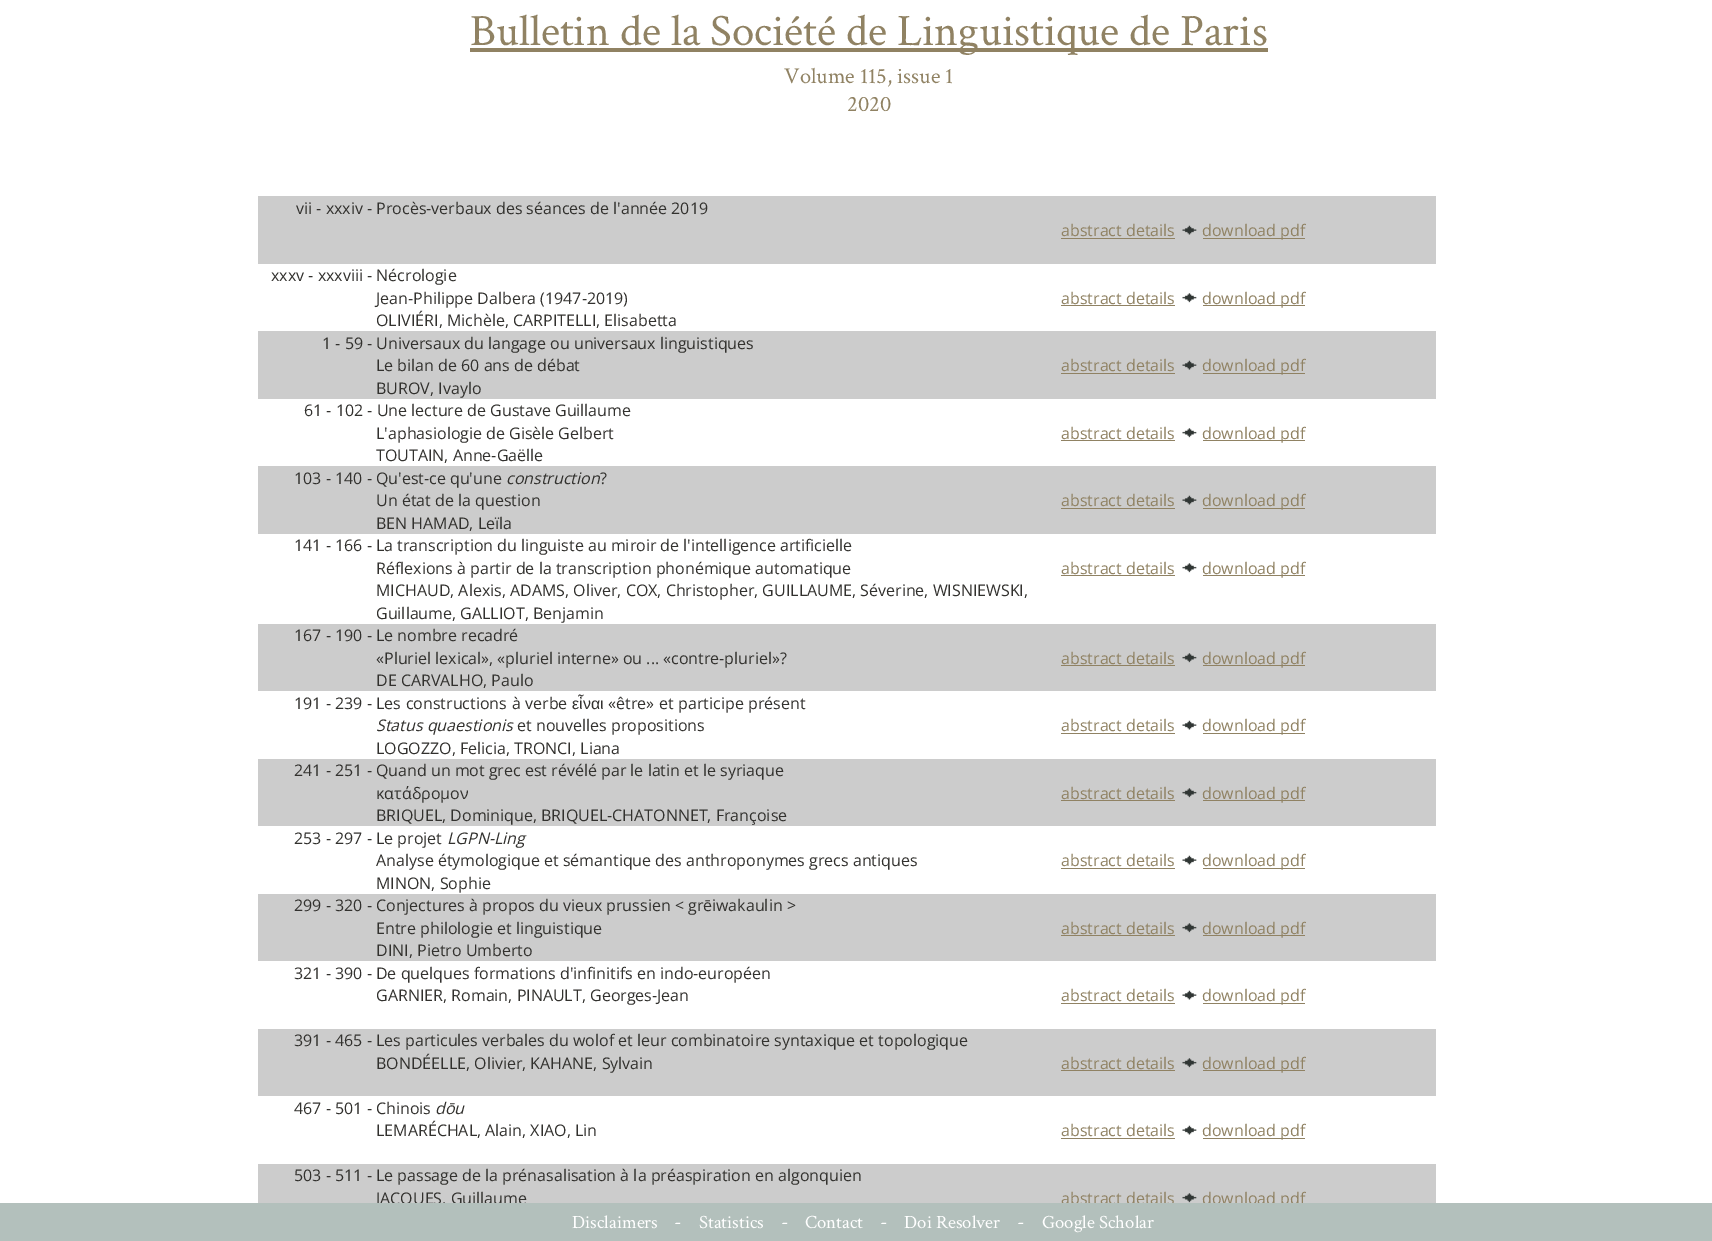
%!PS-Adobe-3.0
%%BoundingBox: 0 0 1712 1241
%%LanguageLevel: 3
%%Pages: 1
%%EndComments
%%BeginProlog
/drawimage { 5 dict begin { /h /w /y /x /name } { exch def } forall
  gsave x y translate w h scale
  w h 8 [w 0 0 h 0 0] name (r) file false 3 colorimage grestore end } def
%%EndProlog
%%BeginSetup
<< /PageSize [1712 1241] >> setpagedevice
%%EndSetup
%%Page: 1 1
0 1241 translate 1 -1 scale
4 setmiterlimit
1 setgray
0 0 1712 1241 rectfill
0.565 0.51 0.388 setrgbcolor
470 48 798 4 rectfill
0.8 setgray
258 196 1178 68 rectfill
0.565 0.51 0.388 setrgbcolor
1061 238 114 1 rectfill
(images/1.raw) 1182 225 15 10 drawimage
1203 238 102 1 rectfill
1061 305 114 1 rectfill
(images/2.raw) 1182 293 15 10 drawimage
1203 305 102 1 rectfill
0.8 setgray
258 331 1178 68 rectfill
0.565 0.51 0.388 setrgbcolor
1061 373 114 1 rectfill
(images/3.raw) 1182 360 15 10 drawimage
1203 373 102 1 rectfill
1061 440 114 1 rectfill
(images/2.raw) 1182 428 15 10 drawimage
1203 440 102 1 rectfill
0.8 setgray
258 466 1178 68 rectfill
0.565 0.51 0.388 setrgbcolor
1061 508 114 1 rectfill
(images/1.raw) 1182 495 15 10 drawimage
1203 508 102 1 rectfill
1061 575 114 1 rectfill
(images/2.raw) 1182 563 15 10 drawimage
1203 575 102 1 rectfill
0.8 setgray
258 624 1178 67 rectfill
0.565 0.51 0.388 setrgbcolor
1061 665 114 1 rectfill
(images/4.raw) 1182 653 15 10 drawimage
1203 665 102 1 rectfill
1061 733 114 1 rectfill
(images/5.raw) 1182 720 15 10 drawimage
1203 733 102 1 rectfill
0.8 setgray
258 759 1178 67 rectfill
0.565 0.51 0.388 setrgbcolor
1061 800 114 1 rectfill
(images/4.raw) 1182 788 15 10 drawimage
1203 800 102 1 rectfill
1061 868 114 1 rectfill
(images/5.raw) 1182 855 15 10 drawimage
1203 868 102 1 rectfill
0.8 setgray
258 894 1178 67 rectfill
0.565 0.51 0.388 setrgbcolor
1061 935 114 1 rectfill
(images/4.raw) 1182 923 15 10 drawimage
1203 935 102 1 rectfill
1061 1003 114 1 rectfill
(images/5.raw) 1182 990 15 10 drawimage
1203 1003 102 1 rectfill
0.8 setgray
258 1029 1178 67 rectfill
0.565 0.51 0.388 setrgbcolor
1061 1070 114 1 rectfill
(images/4.raw) 1182 1058 15 10 drawimage
1203 1070 102 1 rectfill
1061 1138 114 1 rectfill
(images/5.raw) 1182 1125 15 10 drawimage
1203 1138 102 1 rectfill
0.8 setgray
258 1164 1178 39 rectfill
(images/4.raw) 1182 1193 15 10 drawimage
/CrimsonText-Regular [45 0 0 -45 0 0] selectfont
0.565 0.51 0.388 setrgbcolor
470 45 moveto (Bulletin de la Société de Linguistique de Paris) show
/CrimsonText-Regular [22.5 0 0 -22.5 0 0] selectfont
784 83 moveto (Volume 115, issue 1) show
847 111 moveto (2020) show
/OpenSans-Regular [16 0 0 -16 0 0] selectfont
0.196 0.192 0.18 setrgbcolor
296 214 moveto (vii - xxxiv - Procès-verbaux des séances de l'année 2019) show
0.565 0.51 0.388 setrgbcolor
1061 236 moveto (abstract details) show
1202 236 moveto (download pdf) show
0.196 0.192 0.18 setrgbcolor
271 281 moveto (xxxv - xxxviii - Nécrologie) show
376 304 moveto (Jean-Philippe Dalbera \(1947-2019\)) show
376 326 moveto (OLIVIÉRI, Michèle, CARPITELLI, Elisabetta) show
0.565 0.51 0.388 setrgbcolor
1061 304 moveto (abstract details) show
1202 304 moveto (download pdf) show
0.196 0.192 0.18 setrgbcolor
322 349 moveto (1 - 59 - Universaux du langage ou universaux linguistiques) show
376 371 moveto (Le bilan de 60 ans de débat) show
376 394 moveto (BUROV, Ivaylo) show
0.565 0.51 0.388 setrgbcolor
1061 371 moveto (abstract details) show
1202 371 moveto (download pdf) show
0.196 0.192 0.18 setrgbcolor
304 416 moveto (61 - 102 - Une lecture de Gustave Guillaume) show
376 439 moveto (L'aphasiologie de Gisèle Gelbert) show
376 461 moveto (TOUTAIN, Anne-Gaëlle) show
0.565 0.51 0.388 setrgbcolor
1061 439 moveto (abstract details) show
1202 439 moveto (download pdf) show
0.196 0.192 0.18 setrgbcolor
294 484 moveto (103 - 140 - Qu'est-ce qu'une) show
/OpenSans-Italic [16 0 0 -16 0 0] selectfont
506 484 moveto (construction) show
/OpenSans-Regular [16 0 0 -16 0 0] selectfont
600 484 moveto (?) show
376 506 moveto (Un état de la question) show
376 529 moveto (BEN HAMAD, Leïla) show
0.565 0.51 0.388 setrgbcolor
1061 506 moveto (abstract details) show
1202 506 moveto (download pdf) show
0.196 0.192 0.18 setrgbcolor
294 551 moveto (141 - 166 - La transcription du linguiste au miroir de l'intelligence artificielle) show
376 574 moveto (Réflexions à partir de la transcription phonémique automatique) show
376 596 moveto (MICHAUD, Alexis, ADAMS, Oliver, COX, Christopher, GUILLAUME, Séverine, WISNIEWSKI,) show
376 619 moveto (Guillaume, GALLIOT, Benjamin) show
0.565 0.51 0.388 setrgbcolor
1061 574 moveto (abstract details) show
1202 574 moveto (download pdf) show
0.196 0.192 0.18 setrgbcolor
294 641 moveto (167 - 190 - Le nombre recadré) show
376 664 moveto («Pluriel lexical», «pluriel interne» ou ... «contre-pluriel»?) show
376 686 moveto (DE CARVALHO, Paulo) show
0.565 0.51 0.388 setrgbcolor
1061 664 moveto (abstract details) show
1202 664 moveto (download pdf) show
0.196 0.192 0.18 setrgbcolor
294 709 moveto (191 - 239 -) show
376 709 moveto 0.5 0 32 (Les constructions à verbe) widthshow
/LiberationSans-Regular [16 0 0 -16 0 0] selectfont
572 709 moveto (εἶναι) show
/OpenSans-Regular [16 0 0 -16 0 0] selectfont
608 709 moveto 0.5 0 32 («être» et participe présent) widthshow
/OpenSans-Italic [16 0 0 -16 0 0] selectfont
376 731 moveto (Status quaestionis) show
/OpenSans-Regular [16 0 0 -16 0 0] selectfont
517 731 moveto (et nouvelles propositions) show
376 754 moveto (LOGOZZO, Felicia, TRONCI, Liana) show
0.565 0.51 0.388 setrgbcolor
1061 731 moveto (abstract details) show
1202 731 moveto (download pdf) show
0.196 0.192 0.18 setrgbcolor
294 776 moveto (241 - 251 - Quand un mot grec est révélé par le latin et le syriaque) show
376 799 moveto (κατάδρομον) show
376 821 moveto (BRIQUEL, Dominique, BRIQUEL-CHATONNET, Françoise) show
0.565 0.51 0.388 setrgbcolor
1061 799 moveto (abstract details) show
1202 799 moveto (download pdf) show
0.196 0.192 0.18 setrgbcolor
294 844 moveto (253 - 297 - Le projet) show
/OpenSans-Italic [16 0 0 -16 0 0] selectfont
447 844 moveto (LGPN-Ling) show
/OpenSans-Regular [16 0 0 -16 0 0] selectfont
376 866 moveto (Analyse étymologique et sémantique des anthroponymes grecs antiques) show
376 889 moveto (MINON, Sophie) show
0.565 0.51 0.388 setrgbcolor
1061 866 moveto (abstract details) show
1202 866 moveto (download pdf) show
0.196 0.192 0.18 setrgbcolor
294 911 moveto (299 - 320 - Conjectures à propos du vieux prussien < grēiwakaulin >) show
376 934 moveto (Entre philologie et linguistique) show
376 956 moveto (DINI, Pietro Umberto) show
0.565 0.51 0.388 setrgbcolor
1061 934 moveto (abstract details) show
1202 934 moveto (download pdf) show
0.196 0.192 0.18 setrgbcolor
294 979 moveto (321 - 390 - De quelques formations d'infinitifs en indo-européen) show
376 1001 moveto (GARNIER, Romain, PINAULT, Georges-Jean) show
0.565 0.51 0.388 setrgbcolor
1061 1001 moveto (abstract details) show
1202 1001 moveto (download pdf) show
0.196 0.192 0.18 setrgbcolor
294 1046 moveto (391 - 465 - Les particules verbales du wolof et leur combinatoire syntaxique et topologique) show
376 1069 moveto (BONDÉELLE, Olivier, KAHANE, Sylvain) show
0.565 0.51 0.388 setrgbcolor
1061 1069 moveto (abstract details) show
1202 1069 moveto (download pdf) show
0.196 0.192 0.18 setrgbcolor
294 1114 moveto (467 - 501 - Chinois) show
/OpenSans-Italic [16 0 0 -16 0 0] selectfont
435 1114 moveto (dōu) show
/OpenSans-Regular [16 0 0 -16 0 0] selectfont
376 1136 moveto (LEMARÉCHAL, Alain, XIAO, Lin) show
0.565 0.51 0.388 setrgbcolor
1061 1136 moveto (abstract details) show
1202 1136 moveto (download pdf) show
0.196 0.192 0.18 setrgbcolor
294 1181 moveto (503 - 511 - Le passage de la prénasalisation à la préaspiration en algonquien) show
376 1204 moveto (JACQUES, Guillaume) show
0.565 0.51 0.388 setrgbcolor
1061 1204 moveto (abstract details) show
1202 1204 moveto (download pdf) show
0.702 0.753 0.737 setrgbcolor
0 1203 1712 38 rectfill
/CrimsonText-Regular [18.75 0 0 -18.75 0 0] selectfont
1 setgray
572 1228 moveto (Disclaimers) show
/CrimsonText-Regular [20 0 0 -20 0 0] selectfont
674 1228 moveto (-) show
/CrimsonText-Regular [18.75 0 0 -18.75 0 0] selectfont
699 1228 moveto (Statistics) show
/CrimsonText-Regular [20 0 0 -20 0 0] selectfont
781 1228 moveto (-) show
/CrimsonText-Regular [18.75 0 0 -18.75 0 0] selectfont
805 1228 moveto (Contact) show
/CrimsonText-Regular [20 0 0 -20 0 0] selectfont
880 1228 moveto (-) show
/CrimsonText-Regular [18.75 0 0 -18.75 0 0] selectfont
904 1228 moveto (Doi Resolver) show
/CrimsonText-Regular [20 0 0 -20 0 0] selectfont
1017 1228 moveto (-) show
/CrimsonText-Regular [18.75 0 0 -18.75 0 0] selectfont
1042 1228 moveto (Google Scholar) show
showpage
%%EOF
